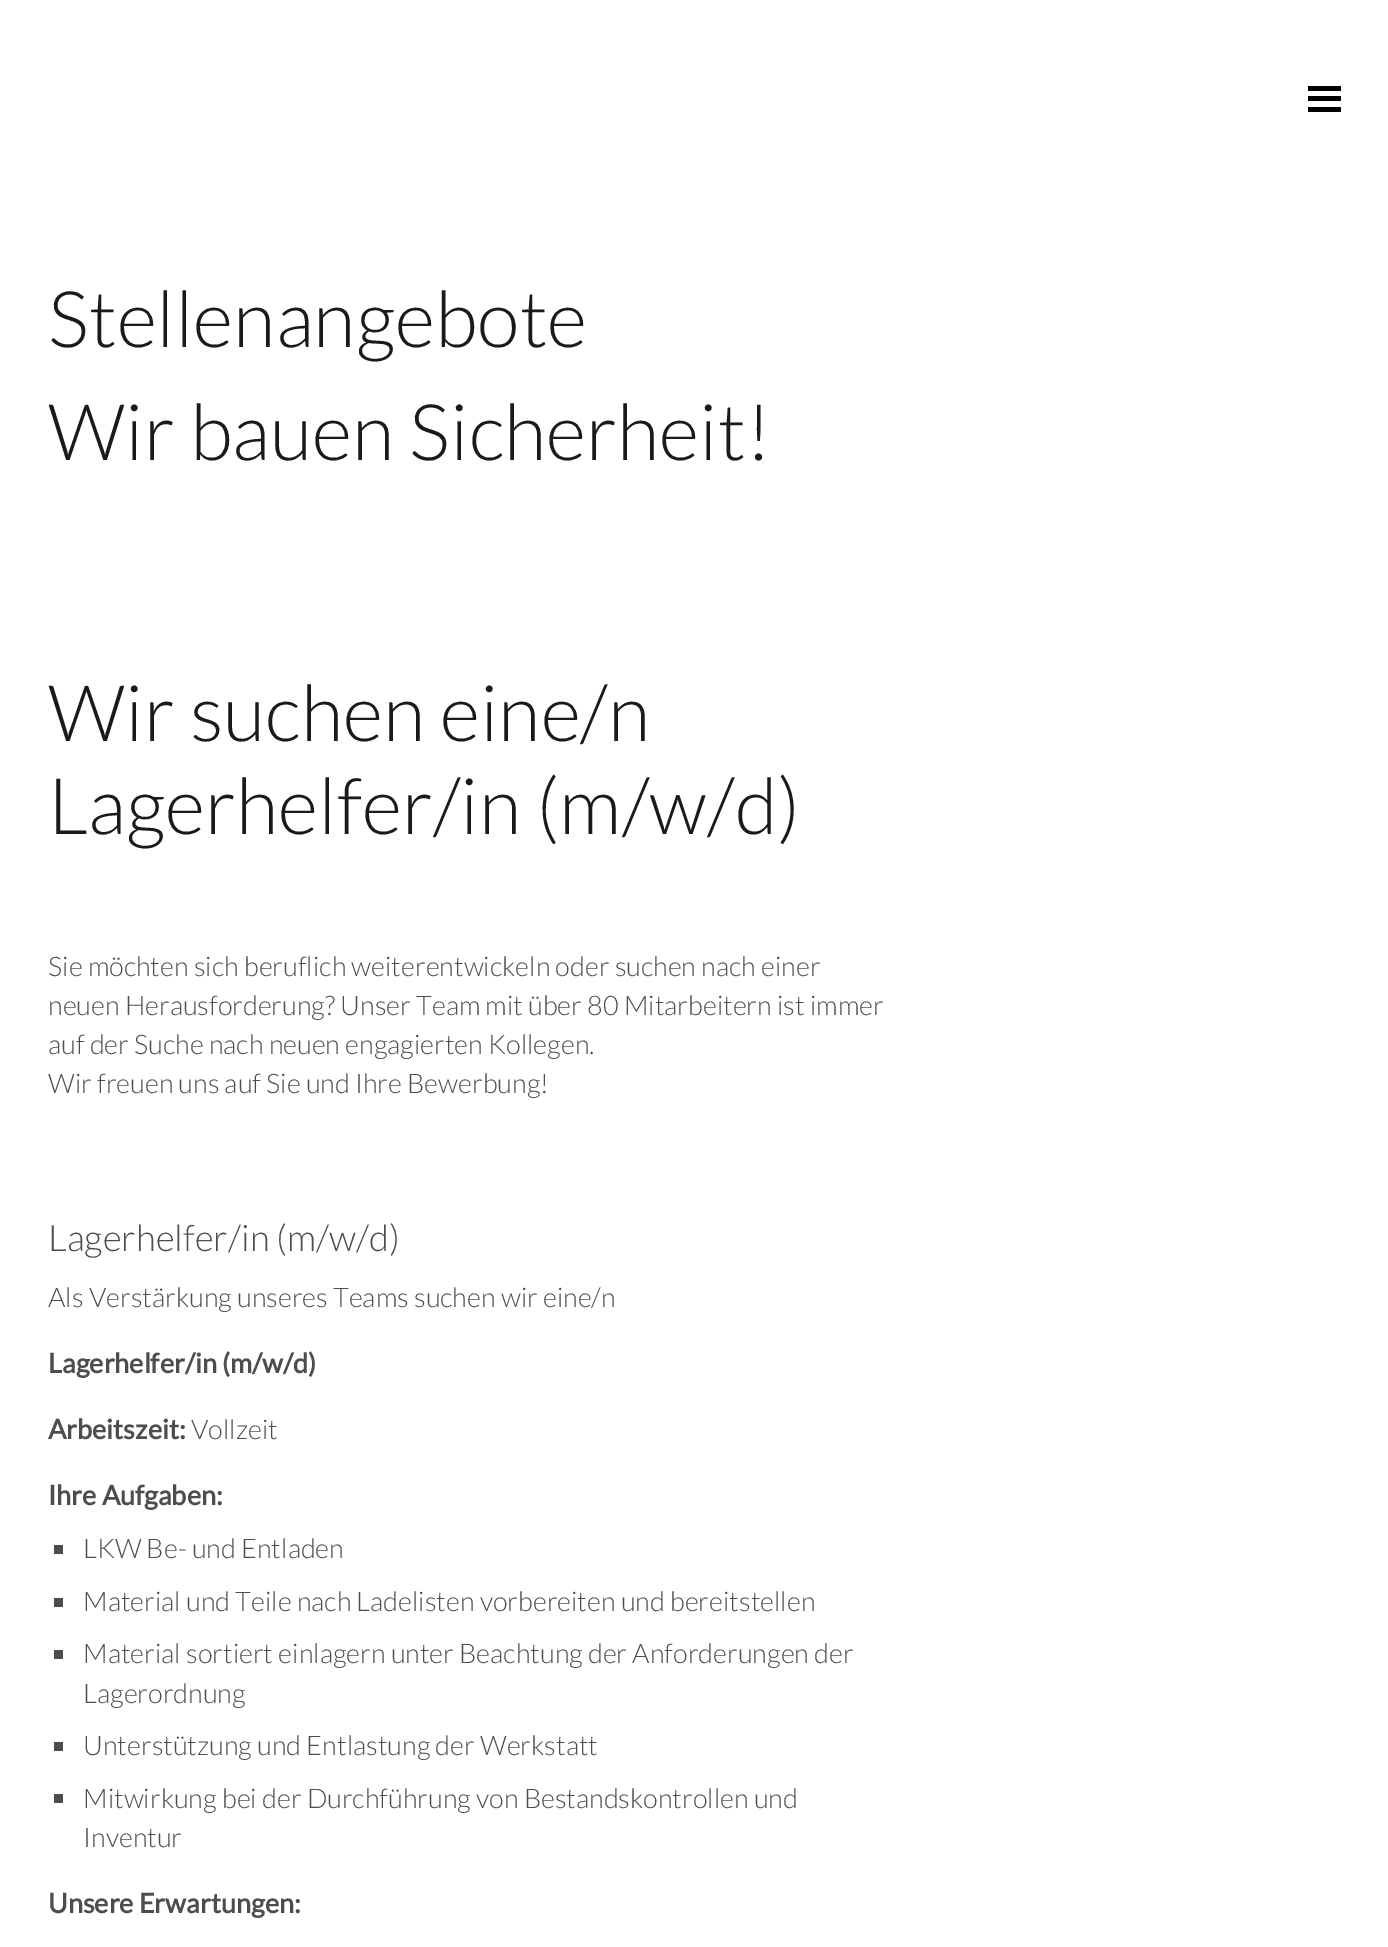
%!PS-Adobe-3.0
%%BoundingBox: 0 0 1388 1947
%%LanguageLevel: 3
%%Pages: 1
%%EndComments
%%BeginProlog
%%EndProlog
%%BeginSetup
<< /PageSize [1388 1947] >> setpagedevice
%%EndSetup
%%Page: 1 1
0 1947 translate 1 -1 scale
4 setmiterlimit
1 setgray
0 0 1388 1947 rectfill
0 setgray
1308 86 33 5 rectfill
1308 96 33 5 rectfill
1308 107 33 5 rectfill
0.302 setgray
54 1545 9 9 rectfill
54 1598 9 9 rectfill
54 1650 9 9 rectfill
54 1742 9 9 rectfill
54 1794 9 9 rectfill
/Lato-Light [78 0 0 -78 0 0] selectfont
0.102 setgray
48 347 moveto (Stellenangebote) show
48 460 moveto (Wir bauen Sicherheit!) show
48 741 moveto (Wir suchen eine/n) show
48 834 moveto (Lagerhelfer/in \(m/w/d\)) show
/Lato-Light [27 0 0 -27 0 0] selectfont
0.302 setgray
48 976 moveto (Sie möchten sich beruflich weiterentwickeln oder suchen nach einer) show
48 1015 moveto (neuen Herausforderung? Unser Team mit über 80 Mitarbeitern ist immer) show
48 1054 moveto (auf der Suche nach neuen engagierten Kollegen.) show
48 1093 moveto (Wir freuen uns auf Sie und Ihre Bewerbung!) show
/Lato-Light [36.5 0 0 -36.5 0 0] selectfont
48 1251 moveto (Lagerhelfer/in \(m/w/d\)) show
/Lato-Light [27 0 0 -27 0 0] selectfont
48 1307 moveto (Als Verstärkung unseres Teams suchen wir eine/n) show
/Lato-Bold [27 0 0 -27 0 0] selectfont
48 1373 moveto (Lagerhelfer/in \(m/w/d\)) show
48 1439 moveto (Arbeitszeit:) show
/Lato-Light [27 0 0 -27 0 0] selectfont
191 1439 moveto (Vollzeit) show
/Lato-Bold [27 0 0 -27 0 0] selectfont
48 1505 moveto (Ihre Aufgaben:) show
/Lato-Light [27 0 0 -27 0 0] selectfont
83 1558 moveto (LKW Be- und Entladen) show
83 1611 moveto (Material und Teile nach Ladelisten vorbereiten und bereitstellen) show
83 1663 moveto (Material sortiert einlagern unter Beachtung der Anforderungen der) show
83 1703 moveto (Lagerordnung) show
83 1755 moveto (Unterstützung und Entlastung der Werkstatt) show
83 1808 moveto (Mitwirkung bei der Durchführung von Bestandskontrollen und) show
83 1847 moveto (Inventur) show
/Lato-Bold [27 0 0 -27 0 0] selectfont
48 1913 moveto (Unsere Erwartungen:) show
showpage
%%EOF
